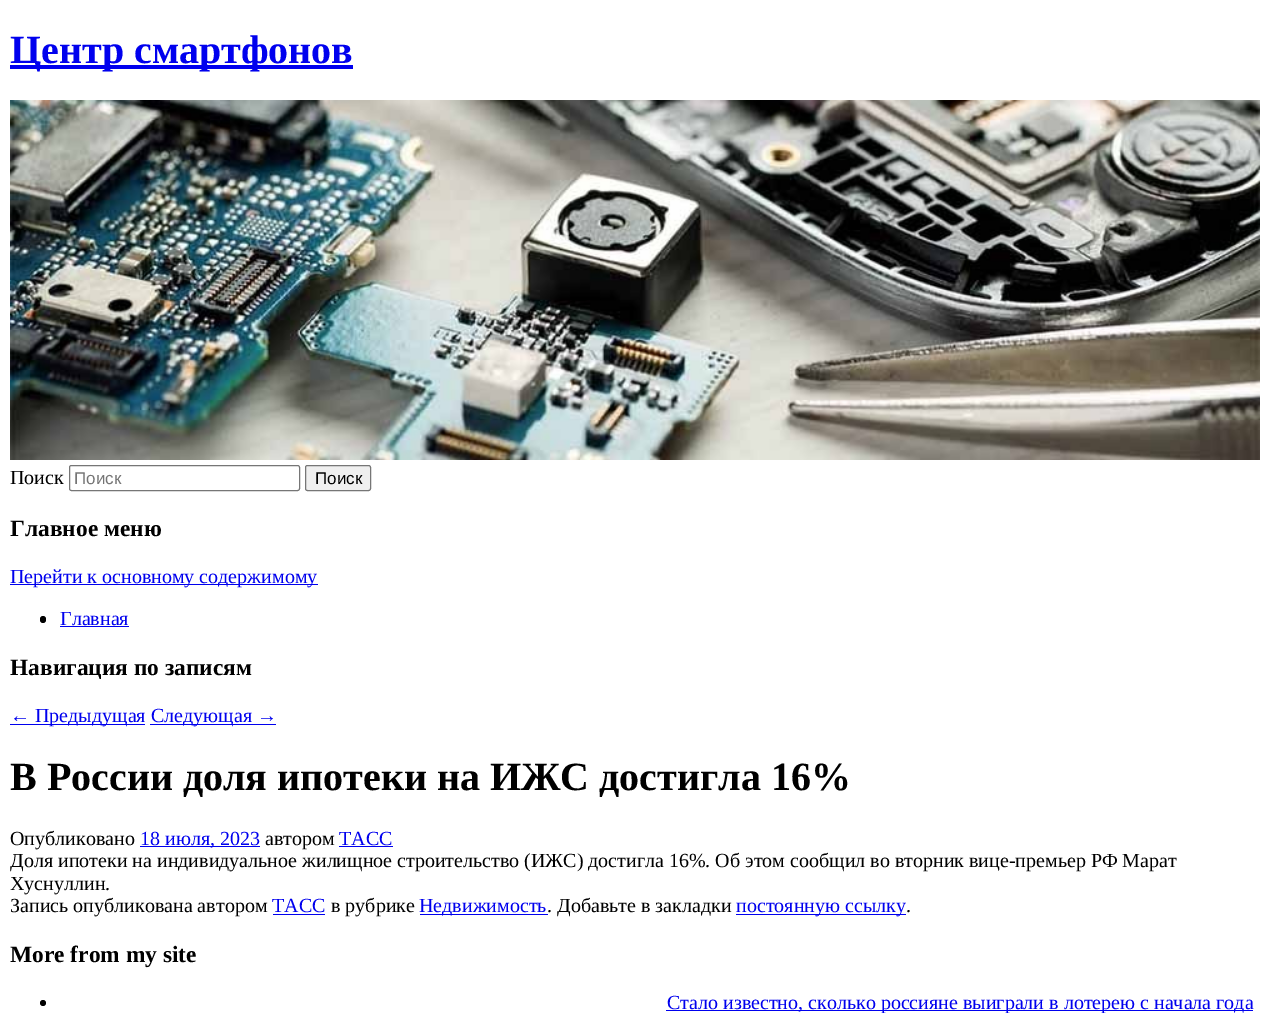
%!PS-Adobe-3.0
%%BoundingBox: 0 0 1267 1013
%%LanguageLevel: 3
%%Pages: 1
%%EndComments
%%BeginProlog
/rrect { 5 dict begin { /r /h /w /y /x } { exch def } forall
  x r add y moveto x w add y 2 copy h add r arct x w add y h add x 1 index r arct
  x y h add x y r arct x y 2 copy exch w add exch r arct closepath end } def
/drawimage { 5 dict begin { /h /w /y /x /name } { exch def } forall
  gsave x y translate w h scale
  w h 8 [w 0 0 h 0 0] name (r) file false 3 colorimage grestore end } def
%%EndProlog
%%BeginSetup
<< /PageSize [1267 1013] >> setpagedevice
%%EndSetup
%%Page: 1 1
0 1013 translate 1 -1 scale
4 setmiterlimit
1 setgray
0 0 1267 1013 rectfill
0 0 0.933 setrgbcolor
10 65 343 4 rectfill
(images/1.raw) 10 100 1250 360 drawimage
0.463 setgray
69.5 465.5 230 25 2 rrect stroke
0.937 setgray
305.5 465.5 65 25 2 rrect gsave fill grestore
0.463 setgray
stroke
0 0 0.933 setrgbcolor
10 584 308 1 rectfill
0 setgray
40 616 6 7 3 rrect fill
0 0 0.933 setrgbcolor
60 626 69 1 rectfill
10 724 135 1 rectfill
150 724 126 1 rectfill
140 846 120 1 rectfill
339 846 54 1 rectfill
273 914 52 1 rectfill
420 914 128 1 rectfill
736 914 170 1 rectfill
0 setgray
newpath 43 1003 3 0 360 arc closepath fill
0 0 0.933 setrgbcolor
666 1010 587 1 rectfill
/LiberationSerif-Bold [40 0 0 -40 0 0] selectfont
10 63 moveto (Центр смартфонов) show
/LiberationSerif-Regular [20 0 0 -20 0 0] selectfont
0 setgray
10 484 moveto (Поиск) show
/LiberationSans-Regular [17 0 0 -17 0 0] selectfont
0.459 setgray
74 484 moveto (Поиск) show
0 setgray
315 484 moveto (Поиск) show
/LiberationSerif-Bold [23.4 0 0 -23.4 0 0] selectfont
10 536 moveto (Главное меню) show
/LiberationSerif-Regular [20 0 0 -20 0 0] selectfont
0 0 0.933 setrgbcolor
10 583 moveto (Перейти к основному содержимому) show
60 625 moveto (Главная) show
/LiberationSerif-Bold [23.4 0 0 -23.4 0 0] selectfont
0 setgray
10 675 moveto (Навигация по записям) show
/LiberationSerif-Regular [20 0 0 -20 0 0] selectfont
0 0 0.933 setrgbcolor
10 722 moveto (← Предыдущая) show
151 722 moveto (Следующая →) show
/LiberationSerif-Bold [40 0 0 -40 0 0] selectfont
0 setgray
10 790 moveto (В России доля ипотеки на ИЖС достигла 16%) show
/LiberationSerif-Regular [20 0 0 -20 0 0] selectfont
10 845 moveto (Опубликовано) show
0 0 0.933 setrgbcolor
140 845 moveto (18 июля, 2023) show
0 setgray
265 845 moveto (автором) show
0 0 0.933 setrgbcolor
339 845 moveto (ТАСС) show
0 setgray
10 867 moveto (Доля ипотеки на индивидуальное жилищное строительство \(ИЖС\) достигла 16%. Об этом сообщил во вторник вице-премьер РФ Марат) show
10 890 moveto (Хуснуллин.) show
10 912 moveto (Запись опубликована автором) show
0 0 0.933 setrgbcolor
272 912 moveto (ТАСС) show
0 setgray
331 912 moveto (в рубрике) show
0 0 0.933 setrgbcolor
419 912 moveto (Недвижимость) show
0 setgray
547 912 moveto (. Добавьте в закладки) show
0 0 0.933 setrgbcolor
736 912 moveto (постоянную ссылку) show
0 setgray
906 912 moveto (.) show
/LiberationSerif-Bold [23.4 0 0 -23.4 0 0] selectfont
10 962 moveto (More from my site) show
/LiberationSerif-Regular [20 0 0 -20 0 0] selectfont
0 0 0.933 setrgbcolor
667 1009 moveto (Стало известно, сколько россияне выиграли в лотерею с начала года) show
showpage
%%EOF
